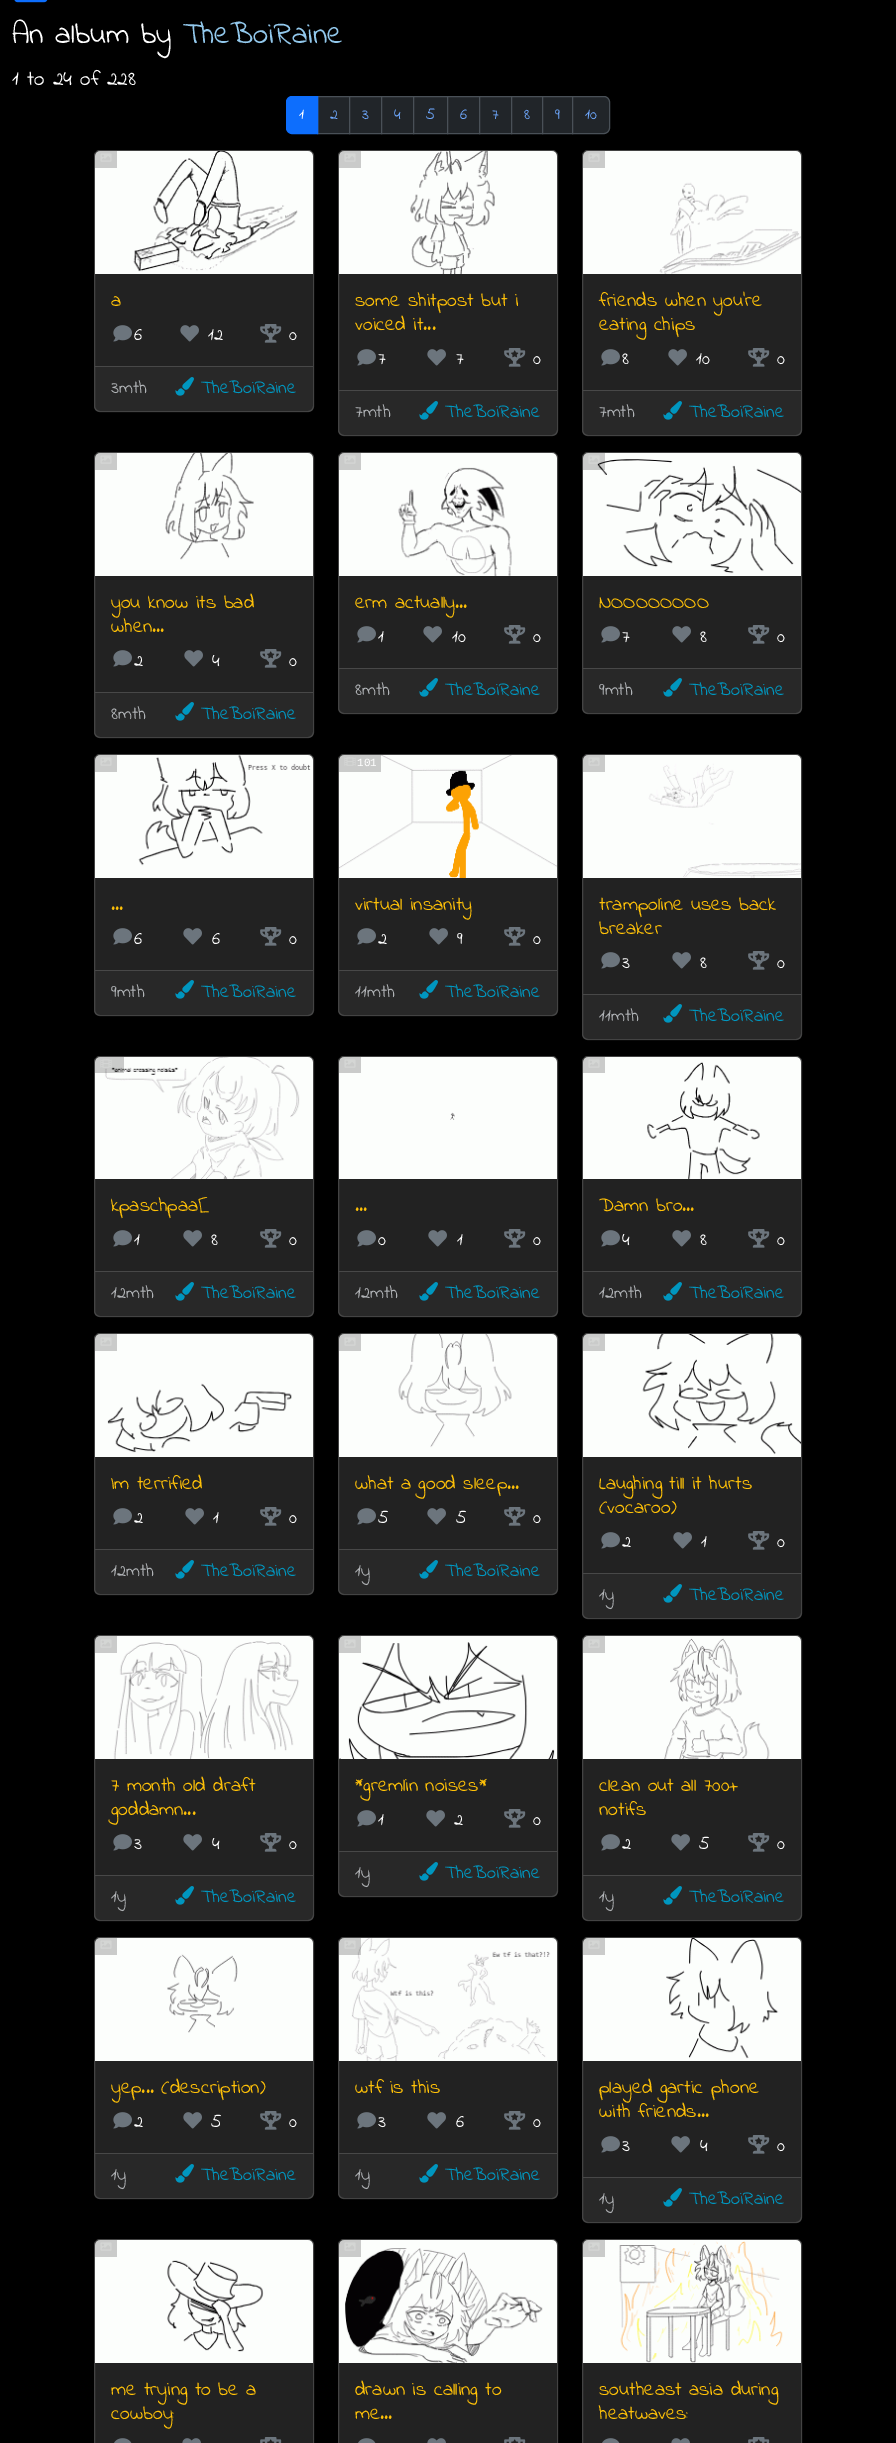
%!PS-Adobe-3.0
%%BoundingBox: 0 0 896 2443
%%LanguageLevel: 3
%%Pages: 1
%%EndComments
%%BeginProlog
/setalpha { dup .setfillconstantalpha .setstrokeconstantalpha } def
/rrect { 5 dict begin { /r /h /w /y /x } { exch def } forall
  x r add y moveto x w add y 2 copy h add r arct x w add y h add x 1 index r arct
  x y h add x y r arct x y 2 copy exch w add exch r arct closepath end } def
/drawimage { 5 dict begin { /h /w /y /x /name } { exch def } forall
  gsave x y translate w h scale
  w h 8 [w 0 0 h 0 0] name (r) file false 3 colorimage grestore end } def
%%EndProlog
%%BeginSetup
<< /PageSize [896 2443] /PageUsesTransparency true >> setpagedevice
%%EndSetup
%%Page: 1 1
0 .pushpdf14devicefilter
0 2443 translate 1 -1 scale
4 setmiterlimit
0 setgray
0 0 896 2443 rectfill
(images/1.raw) 14 0 34 3 drawimage
0.129 0.145 0.161 setrgbcolor
newpath 317.5 96.5 moveto 349.5 96.5 lineto 349.5 133.5 lineto 317.5 133.5 lineto closepath gsave fill grestore
0.286 0.314 0.341 setrgbcolor
stroke
0.051 0.431 0.992 setrgbcolor
newpath 292 96.5 moveto 317.5 96.5 lineto 317.5 133.5 lineto 292 133.5 lineto 289 133.5 286.5 131 286.5 128 curveto 286.5 102 lineto 286.5 99 289 96.5 292 96.5 curveto closepath gsave fill grestore
stroke
0.129 0.145 0.161 setrgbcolor
newpath 349.5 96.5 moveto 381.5 96.5 lineto 381.5 133.5 lineto 349.5 133.5 lineto closepath gsave fill grestore
0.286 0.314 0.341 setrgbcolor
stroke
0.129 0.145 0.161 setrgbcolor
newpath 381.5 96.5 moveto 413.5 96.5 lineto 413.5 133.5 lineto 381.5 133.5 lineto closepath gsave fill grestore
0.286 0.314 0.341 setrgbcolor
stroke
0.129 0.145 0.161 setrgbcolor
newpath 413.5 96.5 moveto 447.5 96.5 lineto 447.5 133.5 lineto 413.5 133.5 lineto closepath gsave fill grestore
0.286 0.314 0.341 setrgbcolor
stroke
0.129 0.145 0.161 setrgbcolor
newpath 447.5 96.5 moveto 479.5 96.5 lineto 479.5 133.5 lineto 447.5 133.5 lineto closepath gsave fill grestore
0.286 0.314 0.341 setrgbcolor
stroke
0.129 0.145 0.161 setrgbcolor
newpath 479.5 96.5 moveto 511.5 96.5 lineto 511.5 133.5 lineto 479.5 133.5 lineto closepath gsave fill grestore
0.286 0.314 0.341 setrgbcolor
stroke
0.129 0.145 0.161 setrgbcolor
newpath 511.5 96.5 moveto 542.5 96.5 lineto 542.5 133.5 lineto 511.5 133.5 lineto closepath gsave fill grestore
0.286 0.314 0.341 setrgbcolor
stroke
0.129 0.145 0.161 setrgbcolor
newpath 542.5 96.5 moveto 572.5 96.5 lineto 572.5 133.5 lineto 542.5 133.5 lineto closepath gsave fill grestore
0.286 0.314 0.341 setrgbcolor
stroke
0.129 0.145 0.161 setrgbcolor
newpath 572.5 96.5 moveto 604 96.5 lineto 607 96.5 609.5 99 609.5 102 curveto 609.5 128 lineto 609.5 131 607 133.5 604 133.5 curveto 572.5 133.5 lineto closepath gsave fill grestore
0.286 0.314 0.341 setrgbcolor
stroke
0.133 setgray
94 150 220 262 6 rrect fill
0.15 setalpha
1 setgray
94.5 150.5 219 261 5.5 rrect stroke
1 setalpha
(images/2.raw) 95 151 218 123 drawimage
0.2 setalpha
0 setgray
95 151 22 17 rectfill
1 setalpha
(images/3.raw) 100 153 12 9 drawimage
(images/4.raw) 113 325 19 17 drawimage
(images/5.raw) 180 325 19 17 drawimage
(images/6.raw) 260 324 22 19 drawimage
0.03 setalpha
0.871 0.886 0.902 setrgbcolor
95 367 218 44 rectfill
1 setalpha
0.282 setgray
95 366 218 1 rectfill
(images/7.raw) 175 377 19 19 drawimage
0.133 setgray
338 150 220 286 6 rrect fill
0.15 setalpha
1 setgray
338.5 150.5 219 285 5.5 rrect stroke
1 setalpha
(images/8.raw) 339 151 218 123 drawimage
0.2 setalpha
0 setgray
339 151 22 17 rectfill
1 setalpha
(images/3.raw) 344 153 12 9 drawimage
(images/4.raw) 357 349 19 17 drawimage
(images/5.raw) 427 349 19 17 drawimage
(images/6.raw) 504 348 22 19 drawimage
0.03 setalpha
0.871 0.886 0.902 setrgbcolor
339 391 218 44 rectfill
1 setalpha
0.282 setgray
339 390 218 1 rectfill
(images/7.raw) 419 401 19 19 drawimage
0.133 setgray
582 150 220 286 6 rrect fill
0.15 setalpha
1 setgray
582.5 150.5 219 285 5.5 rrect stroke
1 setalpha
(images/9.raw) 583 151 218 123 drawimage
0.2 setalpha
0 setgray
583 151 22 17 rectfill
1 setalpha
(images/3.raw) 588 153 12 9 drawimage
(images/4.raw) 601 349 19 17 drawimage
(images/5.raw) 668 349 19 17 drawimage
(images/6.raw) 748 348 22 19 drawimage
0.03 setalpha
0.871 0.886 0.902 setrgbcolor
583 391 218 44 rectfill
1 setalpha
0.282 setgray
583 390 218 1 rectfill
(images/7.raw) 663 401 19 19 drawimage
0.133 setgray
94 452 220 286 6 rrect fill
0.15 setalpha
1 setgray
94.5 452.5 219 285 5.5 rrect stroke
1 setalpha
(images/10.raw) 95 453 218 123 drawimage
0.2 setalpha
0 setgray
95 453 22 17 rectfill
1 setalpha
(images/3.raw) 100 455 12 9 drawimage
(images/4.raw) 113 650 19 17 drawimage
(images/5.raw) 184 650 19 17 drawimage
(images/6.raw) 260 649 22 19 drawimage
0.03 setalpha
0.871 0.886 0.902 setrgbcolor
95 693 218 44 rectfill
1 setalpha
0.282 setgray
95 692 218 1 rectfill
(images/7.raw) 175 702 19 19 drawimage
0.133 setgray
338 452 220 262 6 rrect fill
0.15 setalpha
1 setgray
338.5 452.5 219 261 5.5 rrect stroke
1 setalpha
(images/11.raw) 339 453 218 123 drawimage
0.2 setalpha
0 setgray
339 453 22 17 rectfill
1 setalpha
(images/3.raw) 344 455 12 9 drawimage
(images/4.raw) 357 626 19 17 drawimage
(images/5.raw) 423 626 19 17 drawimage
(images/6.raw) 504 625 22 19 drawimage
0.03 setalpha
0.871 0.886 0.902 setrgbcolor
339 669 218 44 rectfill
1 setalpha
0.282 setgray
339 668 218 1 rectfill
(images/7.raw) 419 678 19 19 drawimage
0.133 setgray
582 452 220 262 6 rrect fill
0.15 setalpha
1 setgray
582.5 452.5 219 261 5.5 rrect stroke
1 setalpha
(images/12.raw) 583 453 218 123 drawimage
0.2 setalpha
0 setgray
583 453 22 17 rectfill
1 setalpha
(images/13.raw) 588 455 12 9 drawimage
(images/4.raw) 601 626 19 17 drawimage
(images/5.raw) 672 626 19 17 drawimage
(images/6.raw) 748 625 22 19 drawimage
0.03 setalpha
0.871 0.886 0.902 setrgbcolor
583 669 218 44 rectfill
1 setalpha
0.282 setgray
583 668 218 1 rectfill
(images/7.raw) 663 678 19 19 drawimage
0.133 setgray
94 754 220 262 6 rrect fill
0.15 setalpha
1 setgray
94.5 754.5 219 261 5.5 rrect stroke
1 setalpha
(images/14.raw) 95 755 218 123 drawimage
0.2 setalpha
0 setgray
95 755 22 17 rectfill
1 setalpha
(images/3.raw) 100 757 12 9 drawimage
(images/4.raw) 113 928 19 17 drawimage
(images/5.raw) 183 928 19 17 drawimage
(images/6.raw) 260 927 22 19 drawimage
0.03 setalpha
0.871 0.886 0.902 setrgbcolor
95 971 218 44 rectfill
1 setalpha
0.282 setgray
95 970 218 1 rectfill
(images/7.raw) 175 980 19 19 drawimage
0.133 setgray
338 754 220 262 6 rrect fill
0.15 setalpha
1 setgray
338.5 754.5 219 261 5.5 rrect stroke
1 setalpha
(images/15.raw) 339 755 218 123 drawimage
0.2 setalpha
0 setgray
339 755 42 17 rectfill
1 setalpha
(images/16.raw) 344 757 12 9 drawimage
(images/4.raw) 357 928 19 17 drawimage
(images/5.raw) 429 928 19 17 drawimage
(images/6.raw) 504 927 22 19 drawimage
0.03 setalpha
0.871 0.886 0.902 setrgbcolor
339 971 218 44 rectfill
1 setalpha
0.282 setgray
339 970 218 1 rectfill
(images/7.raw) 419 980 19 19 drawimage
0.133 setgray
582 754 220 286 6 rrect fill
0.15 setalpha
1 setgray
582.5 754.5 219 285 5.5 rrect stroke
1 setalpha
(images/17.raw) 583 755 218 123 drawimage
0.2 setalpha
0 setgray
583 755 22 17 rectfill
1 setalpha
(images/3.raw) 588 757 12 9 drawimage
(images/4.raw) 601 952 19 17 drawimage
(images/5.raw) 672 952 19 17 drawimage
(images/6.raw) 748 951 22 19 drawimage
0.03 setalpha
0.871 0.886 0.902 setrgbcolor
583 995 218 44 rectfill
1 setalpha
0.282 setgray
583 994 218 1 rectfill
(images/7.raw) 663 1004 19 19 drawimage
0.133 setgray
94 1056 220 261 6 rrect fill
0.15 setalpha
1 setgray
94.5 1056.5 219 260 5.5 rrect stroke
1 setalpha
(images/18.raw) 95 1057 218 122 drawimage
0.2 setalpha
0 setgray
95 1057 29 16 rectfill
1 setalpha
(images/19.raw) 100 1059 12 9 drawimage
(images/4.raw) 113 1230 19 17 drawimage
(images/5.raw) 183 1230 19 17 drawimage
(images/6.raw) 260 1229 22 19 drawimage
0.03 setalpha
0.871 0.886 0.902 setrgbcolor
95 1272 218 44 rectfill
1 setalpha
0.282 setgray
95 1271 218 1 rectfill
(images/7.raw) 175 1282 19 19 drawimage
0.133 setgray
338 1056 220 261 6 rrect fill
0.15 setalpha
1 setgray
338.5 1056.5 219 260 5.5 rrect stroke
1 setalpha
(images/20.raw) 339 1057 218 122 drawimage
0.2 setalpha
0 setgray
339 1057 22 16 rectfill
1 setalpha
(images/3.raw) 344 1059 12 9 drawimage
(images/4.raw) 357 1230 19 17 drawimage
(images/5.raw) 428 1230 19 17 drawimage
(images/6.raw) 504 1229 22 19 drawimage
0.03 setalpha
0.871 0.886 0.902 setrgbcolor
339 1272 218 44 rectfill
1 setalpha
0.282 setgray
339 1271 218 1 rectfill
(images/7.raw) 419 1282 19 19 drawimage
0.133 setgray
582 1056 220 261 6 rrect fill
0.15 setalpha
1 setgray
582.5 1056.5 219 260 5.5 rrect stroke
1 setalpha
(images/21.raw) 583 1057 218 122 drawimage
0.2 setalpha
0 setgray
583 1057 22 16 rectfill
1 setalpha
(images/3.raw) 588 1059 12 9 drawimage
(images/4.raw) 601 1230 19 17 drawimage
(images/5.raw) 672 1230 19 17 drawimage
(images/6.raw) 748 1229 22 19 drawimage
0.03 setalpha
0.871 0.886 0.902 setrgbcolor
583 1272 218 44 rectfill
1 setalpha
0.282 setgray
583 1271 218 1 rectfill
(images/7.raw) 663 1282 19 19 drawimage
0.133 setgray
94 1333 220 262 6 rrect fill
0.15 setalpha
1 setgray
94.5 1333.5 219 261 5.5 rrect stroke
1 setalpha
(images/22.raw) 95 1334 218 123 drawimage
0.2 setalpha
0 setgray
95 1334 22 17 rectfill
1 setalpha
(images/3.raw) 100 1337 12 9 drawimage
(images/4.raw) 113 1508 19 17 drawimage
(images/5.raw) 185 1508 19 17 drawimage
(images/6.raw) 260 1507 22 19 drawimage
0.03 setalpha
0.871 0.886 0.902 setrgbcolor
95 1550 218 44 rectfill
1 setalpha
0.282 setgray
95 1549 218 1 rectfill
(images/7.raw) 175 1560 19 19 drawimage
0.133 setgray
338 1333 220 262 6 rrect fill
0.15 setalpha
1 setgray
338.5 1333.5 219 261 5.5 rrect stroke
1 setalpha
(images/23.raw) 339 1334 218 123 drawimage
0.2 setalpha
0 setgray
339 1334 22 17 rectfill
1 setalpha
(images/3.raw) 344 1337 12 9 drawimage
(images/4.raw) 357 1508 19 17 drawimage
(images/5.raw) 427 1508 19 17 drawimage
(images/6.raw) 504 1507 22 19 drawimage
0.03 setalpha
0.871 0.886 0.902 setrgbcolor
339 1550 218 44 rectfill
1 setalpha
0.282 setgray
339 1549 218 1 rectfill
(images/7.raw) 419 1560 19 19 drawimage
0.133 setgray
582 1333 220 286 6 rrect fill
0.15 setalpha
1 setgray
582.5 1333.5 219 285 5.5 rrect stroke
1 setalpha
(images/24.raw) 583 1334 218 123 drawimage
0.2 setalpha
0 setgray
583 1334 22 17 rectfill
1 setalpha
(images/3.raw) 588 1337 12 9 drawimage
(images/4.raw) 601 1532 19 17 drawimage
(images/5.raw) 673 1532 19 17 drawimage
(images/6.raw) 748 1531 22 19 drawimage
0.03 setalpha
0.871 0.886 0.902 setrgbcolor
583 1574 218 44 rectfill
1 setalpha
0.282 setgray
583 1573 218 1 rectfill
(images/7.raw) 663 1584 19 19 drawimage
0.133 setgray
94 1635 220 286 6 rrect fill
0.15 setalpha
1 setgray
94.5 1635.5 219 285 5.5 rrect stroke
1 setalpha
(images/25.raw) 95 1636 218 123 drawimage
0.2 setalpha
0 setgray
95 1636 22 17 rectfill
1 setalpha
(images/3.raw) 100 1639 12 9 drawimage
(images/4.raw) 113 1834 19 17 drawimage
(images/5.raw) 183 1834 19 17 drawimage
(images/6.raw) 260 1833 22 19 drawimage
0.03 setalpha
0.871 0.886 0.902 setrgbcolor
95 1876 218 44 rectfill
1 setalpha
0.282 setgray
95 1875 218 1 rectfill
(images/7.raw) 175 1886 19 19 drawimage
0.133 setgray
338 1635 220 262 6 rrect fill
0.15 setalpha
1 setgray
338.5 1635.5 219 261 5.5 rrect stroke
1 setalpha
(images/26.raw) 339 1636 218 123 drawimage
0.2 setalpha
0 setgray
339 1636 22 17 rectfill
1 setalpha
(images/3.raw) 344 1639 12 9 drawimage
(images/4.raw) 357 1810 19 17 drawimage
(images/5.raw) 426 1810 19 17 drawimage
(images/6.raw) 504 1809 22 19 drawimage
0.03 setalpha
0.871 0.886 0.902 setrgbcolor
339 1852 218 44 rectfill
1 setalpha
0.282 setgray
339 1851 218 1 rectfill
(images/7.raw) 419 1862 19 19 drawimage
0.133 setgray
582 1635 220 286 6 rrect fill
0.15 setalpha
1 setgray
582.5 1635.5 219 285 5.5 rrect stroke
1 setalpha
(images/27.raw) 583 1636 218 123 drawimage
0.2 setalpha
0 setgray
583 1636 22 17 rectfill
1 setalpha
(images/3.raw) 588 1639 12 9 drawimage
(images/4.raw) 601 1834 19 17 drawimage
(images/5.raw) 671 1834 19 17 drawimage
(images/6.raw) 748 1833 22 19 drawimage
0.03 setalpha
0.871 0.886 0.902 setrgbcolor
583 1876 218 44 rectfill
1 setalpha
0.282 setgray
583 1875 218 1 rectfill
(images/7.raw) 663 1886 19 19 drawimage
0.133 setgray
94 1937 220 262 6 rrect fill
0.15 setalpha
1 setgray
94.5 1937.5 219 261 5.5 rrect stroke
1 setalpha
(images/28.raw) 95 1938 218 123 drawimage
0.2 setalpha
0 setgray
95 1938 22 17 rectfill
1 setalpha
(images/3.raw) 100 1940 12 9 drawimage
(images/4.raw) 113 2112 19 17 drawimage
(images/5.raw) 183 2112 19 17 drawimage
(images/6.raw) 260 2111 22 19 drawimage
0.03 setalpha
0.871 0.886 0.902 setrgbcolor
95 2154 218 44 rectfill
1 setalpha
0.282 setgray
95 2153 218 1 rectfill
(images/7.raw) 175 2164 19 19 drawimage
0.133 setgray
338 1937 220 262 6 rrect fill
0.15 setalpha
1 setgray
338.5 1937.5 219 261 5.5 rrect stroke
1 setalpha
(images/29.raw) 339 1938 218 123 drawimage
0.2 setalpha
0 setgray
339 1938 22 17 rectfill
1 setalpha
(images/3.raw) 344 1940 12 9 drawimage
(images/4.raw) 357 2112 19 17 drawimage
(images/5.raw) 427 2112 19 17 drawimage
(images/6.raw) 504 2111 22 19 drawimage
0.03 setalpha
0.871 0.886 0.902 setrgbcolor
339 2154 218 44 rectfill
1 setalpha
0.282 setgray
339 2153 218 1 rectfill
(images/7.raw) 419 2164 19 19 drawimage
0.133 setgray
582 1937 220 286 6 rrect fill
0.15 setalpha
1 setgray
582.5 1937.5 219 285 5.5 rrect stroke
1 setalpha
(images/30.raw) 583 1938 218 123 drawimage
0.2 setalpha
0 setgray
583 1938 22 17 rectfill
1 setalpha
(images/3.raw) 588 1940 12 9 drawimage
(images/4.raw) 601 2136 19 17 drawimage
(images/5.raw) 671 2136 19 17 drawimage
(images/6.raw) 748 2135 22 19 drawimage
0.03 setalpha
0.871 0.886 0.902 setrgbcolor
583 2178 218 44 rectfill
1 setalpha
0.282 setgray
583 2177 218 1 rectfill
(images/7.raw) 663 2188 19 19 drawimage
0.133 setgray
94 2239 220 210 6 rrect fill
0.15 setalpha
1 setgray
94.5 2239.5 219 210 5.5 rrect stroke
1 setalpha
(images/31.raw) 95 2240 218 123 drawimage
0.2 setalpha
0 setgray
95 2240 22 17 rectfill
1 setalpha
(images/3.raw) 100 2242 12 9 drawimage
(images/32.raw) 114 2438 18 5 drawimage
(images/33.raw) 182 2438 19 5 drawimage
(images/34.raw) 260 2437 22 6 drawimage
0.133 setgray
338 2239 220 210 6 rrect fill
0.15 setalpha
1 setgray
338.5 2239.5 219 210 5.5 rrect stroke
1 setalpha
(images/35.raw) 339 2240 218 123 drawimage
0.2 setalpha
0 setgray
339 2240 22 17 rectfill
1 setalpha
(images/3.raw) 344 2242 12 9 drawimage
(images/32.raw) 358 2438 18 5 drawimage
(images/33.raw) 427 2438 19 5 drawimage
(images/34.raw) 504 2437 22 6 drawimage
0.133 setgray
582 2239 220 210 6 rrect fill
0.15 setalpha
1 setgray
582.5 2239.5 219 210 5.5 rrect stroke
1 setalpha
(images/36.raw) 583 2240 218 123 drawimage
0.2 setalpha
0 setgray
583 2240 22 17 rectfill
1 setalpha
(images/3.raw) 588 2242 12 9 drawimage
(images/32.raw) 602 2438 18 5 drawimage
(images/33.raw) 671 2438 19 5 drawimage
(images/34.raw) 748 2437 22 6 drawimage
/IndieFlower-Regular [31 0 0 -31 0 0] selectfont
1 setgray
12 43 moveto (An album by) show
0.573 0.784 0.925 setrgbcolor
183 43 moveto (TheBoiRaine) show
/IndieFlower-Regular [21.5 0 0 -21.5 0 0] selectfont
1 setgray
12 85 moveto (1 to 24 of 228) show
/IndieFlower-Regular [16 0 0 -16 0 0] selectfont
299 119 moveto (1) show
0.431 0.659 0.996 setrgbcolor
330 119 moveto (2) show
362 119 moveto (3) show
394 119 moveto (4) show
426 119 moveto (5) show
460 119 moveto (6) show
492 119 moveto (7) show
524 119 moveto (8) show
555 119 moveto (9) show
585 119 moveto (10) show
/IndieFlower-Regular [20 0 0 -20 0 0] selectfont
1 0.757 0.027 setrgbcolor
111 306 moveto (a) show
/IndieFlower-Regular [18.5 0 0 -18.5 0 0] selectfont
1 setgray
134 340 moveto (6) show
208 340 moveto (12) show
289 340 moveto (0) show
0.69 0.702 0.714 setrgbcolor
111 393 moveto (3mth) show
0 0.588 0.749 setrgbcolor
201 393 moveto (TheBoiRaine) show
/IndieFlower-Regular [20 0 0 -20 0 0] selectfont
1 0.757 0.027 setrgbcolor
355 306 moveto (some shitpost but i) show
355 330 moveto (voiced it...) show
/IndieFlower-Regular [18.5 0 0 -18.5 0 0] selectfont
1 setgray
378 364 moveto (7) show
456 364 moveto (7) show
533 364 moveto (0) show
0.69 0.702 0.714 setrgbcolor
355 417 moveto (7mth) show
0 0.588 0.749 setrgbcolor
445 417 moveto (TheBoiRaine) show
/IndieFlower-Regular [20 0 0 -20 0 0] selectfont
1 0.757 0.027 setrgbcolor
599 306 moveto (friends when you're) show
599 330 moveto (eating chips) show
/IndieFlower-Regular [18.5 0 0 -18.5 0 0] selectfont
1 setgray
622 364 moveto (8) show
696 364 moveto (10) show
777 364 moveto (0) show
0.69 0.702 0.714 setrgbcolor
599 417 moveto (7mth) show
0 0.588 0.749 setrgbcolor
689 417 moveto (TheBoiRaine) show
/IndieFlower-Regular [20 0 0 -20 0 0] selectfont
1 0.757 0.027 setrgbcolor
111 608 moveto (you know its bad) show
111 632 moveto (when...) show
/IndieFlower-Regular [18.5 0 0 -18.5 0 0] selectfont
1 setgray
134 666 moveto (2) show
212 666 moveto (4) show
289 666 moveto (0) show
0.69 0.702 0.714 setrgbcolor
111 719 moveto (8mth) show
0 0.588 0.749 setrgbcolor
201 719 moveto (TheBoiRaine) show
/IndieFlower-Regular [20 0 0 -20 0 0] selectfont
1 0.757 0.027 setrgbcolor
355 608 moveto (erm actually...) show
/IndieFlower-Regular [18.5 0 0 -18.5 0 0] selectfont
1 setgray
378 642 moveto (1) show
452 642 moveto (10) show
533 642 moveto (0) show
0.69 0.702 0.714 setrgbcolor
355 695 moveto (8mth) show
0 0.588 0.749 setrgbcolor
445 695 moveto (TheBoiRaine) show
/IndieFlower-Regular [20 0 0 -20 0 0] selectfont
1 0.757 0.027 setrgbcolor
599 608 moveto (NOOOOOOOO) show
/IndieFlower-Regular [18.5 0 0 -18.5 0 0] selectfont
1 setgray
622 642 moveto (7) show
700 642 moveto (8) show
777 642 moveto (0) show
0.69 0.702 0.714 setrgbcolor
599 695 moveto (9mth) show
0 0.588 0.749 setrgbcolor
689 695 moveto (TheBoiRaine) show
/IndieFlower-Regular [20 0 0 -20 0 0] selectfont
1 0.757 0.027 setrgbcolor
111 910 moveto (...) show
/IndieFlower-Regular [18.5 0 0 -18.5 0 0] selectfont
1 setgray
134 944 moveto (6) show
212 944 moveto (6) show
289 944 moveto (0) show
0.69 0.702 0.714 setrgbcolor
111 997 moveto (9mth) show
0 0.588 0.749 setrgbcolor
201 997 moveto (TheBoiRaine) show
/LiberationMono-Regular [11 0 0 -11 0 0] selectfont
1 setgray
357 766 moveto (101) show
/IndieFlower-Regular [20 0 0 -20 0 0] selectfont
1 0.757 0.027 setrgbcolor
355 910 moveto (virtual insanity) show
/IndieFlower-Regular [18.5 0 0 -18.5 0 0] selectfont
1 setgray
378 944 moveto (2) show
457 944 moveto (9) show
533 944 moveto (0) show
0.69 0.702 0.714 setrgbcolor
355 997 moveto (11mth) show
0 0.588 0.749 setrgbcolor
445 997 moveto (TheBoiRaine) show
/IndieFlower-Regular [20 0 0 -20 0 0] selectfont
1 0.757 0.027 setrgbcolor
599 910 moveto (trampoline uses back) show
599 934 moveto (breaker) show
/IndieFlower-Regular [18.5 0 0 -18.5 0 0] selectfont
1 setgray
622 968 moveto (3) show
700 968 moveto (8) show
777 968 moveto (0) show
0.69 0.702 0.714 setrgbcolor
599 1021 moveto (11mth) show
0 0.588 0.749 setrgbcolor
689 1021 moveto (TheBoiRaine) show
/IndieFlower-Regular [20 0 0 -20 0 0] selectfont
1 0.757 0.027 setrgbcolor
111 1211 moveto (kpaschpaa[) show
/IndieFlower-Regular [18.5 0 0 -18.5 0 0] selectfont
1 setgray
134 1245 moveto (1) show
211 1245 moveto (8) show
289 1245 moveto (0) show
0.69 0.702 0.714 setrgbcolor
111 1298 moveto (12mth) show
0 0.588 0.749 setrgbcolor
201 1298 moveto (TheBoiRaine) show
/IndieFlower-Regular [20 0 0 -20 0 0] selectfont
1 0.757 0.027 setrgbcolor
355 1211 moveto (...) show
/IndieFlower-Regular [18.5 0 0 -18.5 0 0] selectfont
1 setgray
378 1245 moveto (0) show
457 1245 moveto (1) show
533 1245 moveto (0) show
0.69 0.702 0.714 setrgbcolor
355 1298 moveto (12mth) show
0 0.588 0.749 setrgbcolor
445 1298 moveto (TheBoiRaine) show
/IndieFlower-Regular [20 0 0 -20 0 0] selectfont
1 0.757 0.027 setrgbcolor
599 1211 moveto (Damn bro...) show
/IndieFlower-Regular [18.5 0 0 -18.5 0 0] selectfont
1 setgray
622 1245 moveto (4) show
700 1245 moveto (8) show
777 1245 moveto (0) show
0.69 0.702 0.714 setrgbcolor
599 1298 moveto (12mth) show
0 0.588 0.749 setrgbcolor
689 1298 moveto (TheBoiRaine) show
/IndieFlower-Regular [20 0 0 -20 0 0] selectfont
1 0.757 0.027 setrgbcolor
111 1489 moveto (Im terrified) show
/IndieFlower-Regular [18.5 0 0 -18.5 0 0] selectfont
1 setgray
134 1523 moveto (2) show
213 1523 moveto (1) show
289 1523 moveto (0) show
0.69 0.702 0.714 setrgbcolor
111 1576 moveto (12mth) show
0 0.588 0.749 setrgbcolor
201 1576 moveto (TheBoiRaine) show
/IndieFlower-Regular [20 0 0 -20 0 0] selectfont
1 0.757 0.027 setrgbcolor
355 1489 moveto (what a good sleep...) show
/IndieFlower-Regular [18.5 0 0 -18.5 0 0] selectfont
1 setgray
378 1523 moveto (5) show
456 1523 moveto (5) show
533 1523 moveto (0) show
0.69 0.702 0.714 setrgbcolor
355 1576 moveto (1y) show
0 0.588 0.749 setrgbcolor
445 1576 moveto (TheBoiRaine) show
/IndieFlower-Regular [20 0 0 -20 0 0] selectfont
1 0.757 0.027 setrgbcolor
599 1489 moveto (Laughing till it hurts) show
599 1513 moveto (\(vocaroo\)) show
/IndieFlower-Regular [18.5 0 0 -18.5 0 0] selectfont
1 setgray
622 1547 moveto (2) show
701 1547 moveto (1) show
777 1547 moveto (0) show
0.69 0.702 0.714 setrgbcolor
599 1600 moveto (1y) show
0 0.588 0.749 setrgbcolor
689 1600 moveto (TheBoiRaine) show
/IndieFlower-Regular [20 0 0 -20 0 0] selectfont
1 0.757 0.027 setrgbcolor
111 1791 moveto (7 month old draft) show
111 1815 moveto (goddamn...) show
/IndieFlower-Regular [18.5 0 0 -18.5 0 0] selectfont
1 setgray
134 1849 moveto (3) show
212 1849 moveto (4) show
289 1849 moveto (0) show
0.69 0.702 0.714 setrgbcolor
111 1902 moveto (1y) show
0 0.588 0.749 setrgbcolor
201 1902 moveto (TheBoiRaine) show
/IndieFlower-Regular [20 0 0 -20 0 0] selectfont
1 0.757 0.027 setrgbcolor
355 1791 moveto (*gremlin noises*) show
/IndieFlower-Regular [18.5 0 0 -18.5 0 0] selectfont
1 setgray
378 1825 moveto (1) show
454 1825 moveto (2) show
533 1825 moveto (0) show
0.69 0.702 0.714 setrgbcolor
355 1878 moveto (1y) show
0 0.588 0.749 setrgbcolor
445 1878 moveto (TheBoiRaine) show
/IndieFlower-Regular [20 0 0 -20 0 0] selectfont
1 0.757 0.027 setrgbcolor
599 1791 moveto (clean out all 700+) show
599 1815 moveto (notifs) show
/IndieFlower-Regular [18.5 0 0 -18.5 0 0] selectfont
1 setgray
622 1849 moveto (2) show
699 1849 moveto (5) show
777 1849 moveto (0) show
0.69 0.702 0.714 setrgbcolor
599 1902 moveto (1y) show
0 0.588 0.749 setrgbcolor
689 1902 moveto (TheBoiRaine) show
/IndieFlower-Regular [20 0 0 -20 0 0] selectfont
1 0.757 0.027 setrgbcolor
111 2093 moveto (yep... \(description\)) show
/IndieFlower-Regular [18.5 0 0 -18.5 0 0] selectfont
1 setgray
134 2127 moveto (2) show
211 2127 moveto (5) show
289 2127 moveto (0) show
0.69 0.702 0.714 setrgbcolor
111 2180 moveto (1y) show
0 0.588 0.749 setrgbcolor
201 2180 moveto (TheBoiRaine) show
/IndieFlower-Regular [20 0 0 -20 0 0] selectfont
1 0.757 0.027 setrgbcolor
355 2093 moveto (wtf is this) show
/IndieFlower-Regular [18.5 0 0 -18.5 0 0] selectfont
1 setgray
378 2127 moveto (3) show
456 2127 moveto (6) show
533 2127 moveto (0) show
0.69 0.702 0.714 setrgbcolor
355 2180 moveto (1y) show
0 0.588 0.749 setrgbcolor
445 2180 moveto (TheBoiRaine) show
/IndieFlower-Regular [20 0 0 -20 0 0] selectfont
1 0.757 0.027 setrgbcolor
599 2093 moveto (played gartic phone) show
599 2117 moveto (with friends...) show
/IndieFlower-Regular [18.5 0 0 -18.5 0 0] selectfont
1 setgray
622 2151 moveto (3) show
700 2151 moveto (4) show
777 2151 moveto (0) show
0.69 0.702 0.714 setrgbcolor
599 2204 moveto (1y) show
0 0.588 0.749 setrgbcolor
689 2204 moveto (TheBoiRaine) show
/IndieFlower-Regular [20 0 0 -20 0 0] selectfont
1 0.757 0.027 setrgbcolor
111 2395 moveto (me trying to be a) show
111 2419 moveto (cowboy:) show
355 2395 moveto (drawn is calling to) show
355 2419 moveto (me...) show
599 2395 moveto (southeast asia during) show
599 2419 moveto (heatwaves:) show
.poppdf14devicefilter showpage
%%EOF
